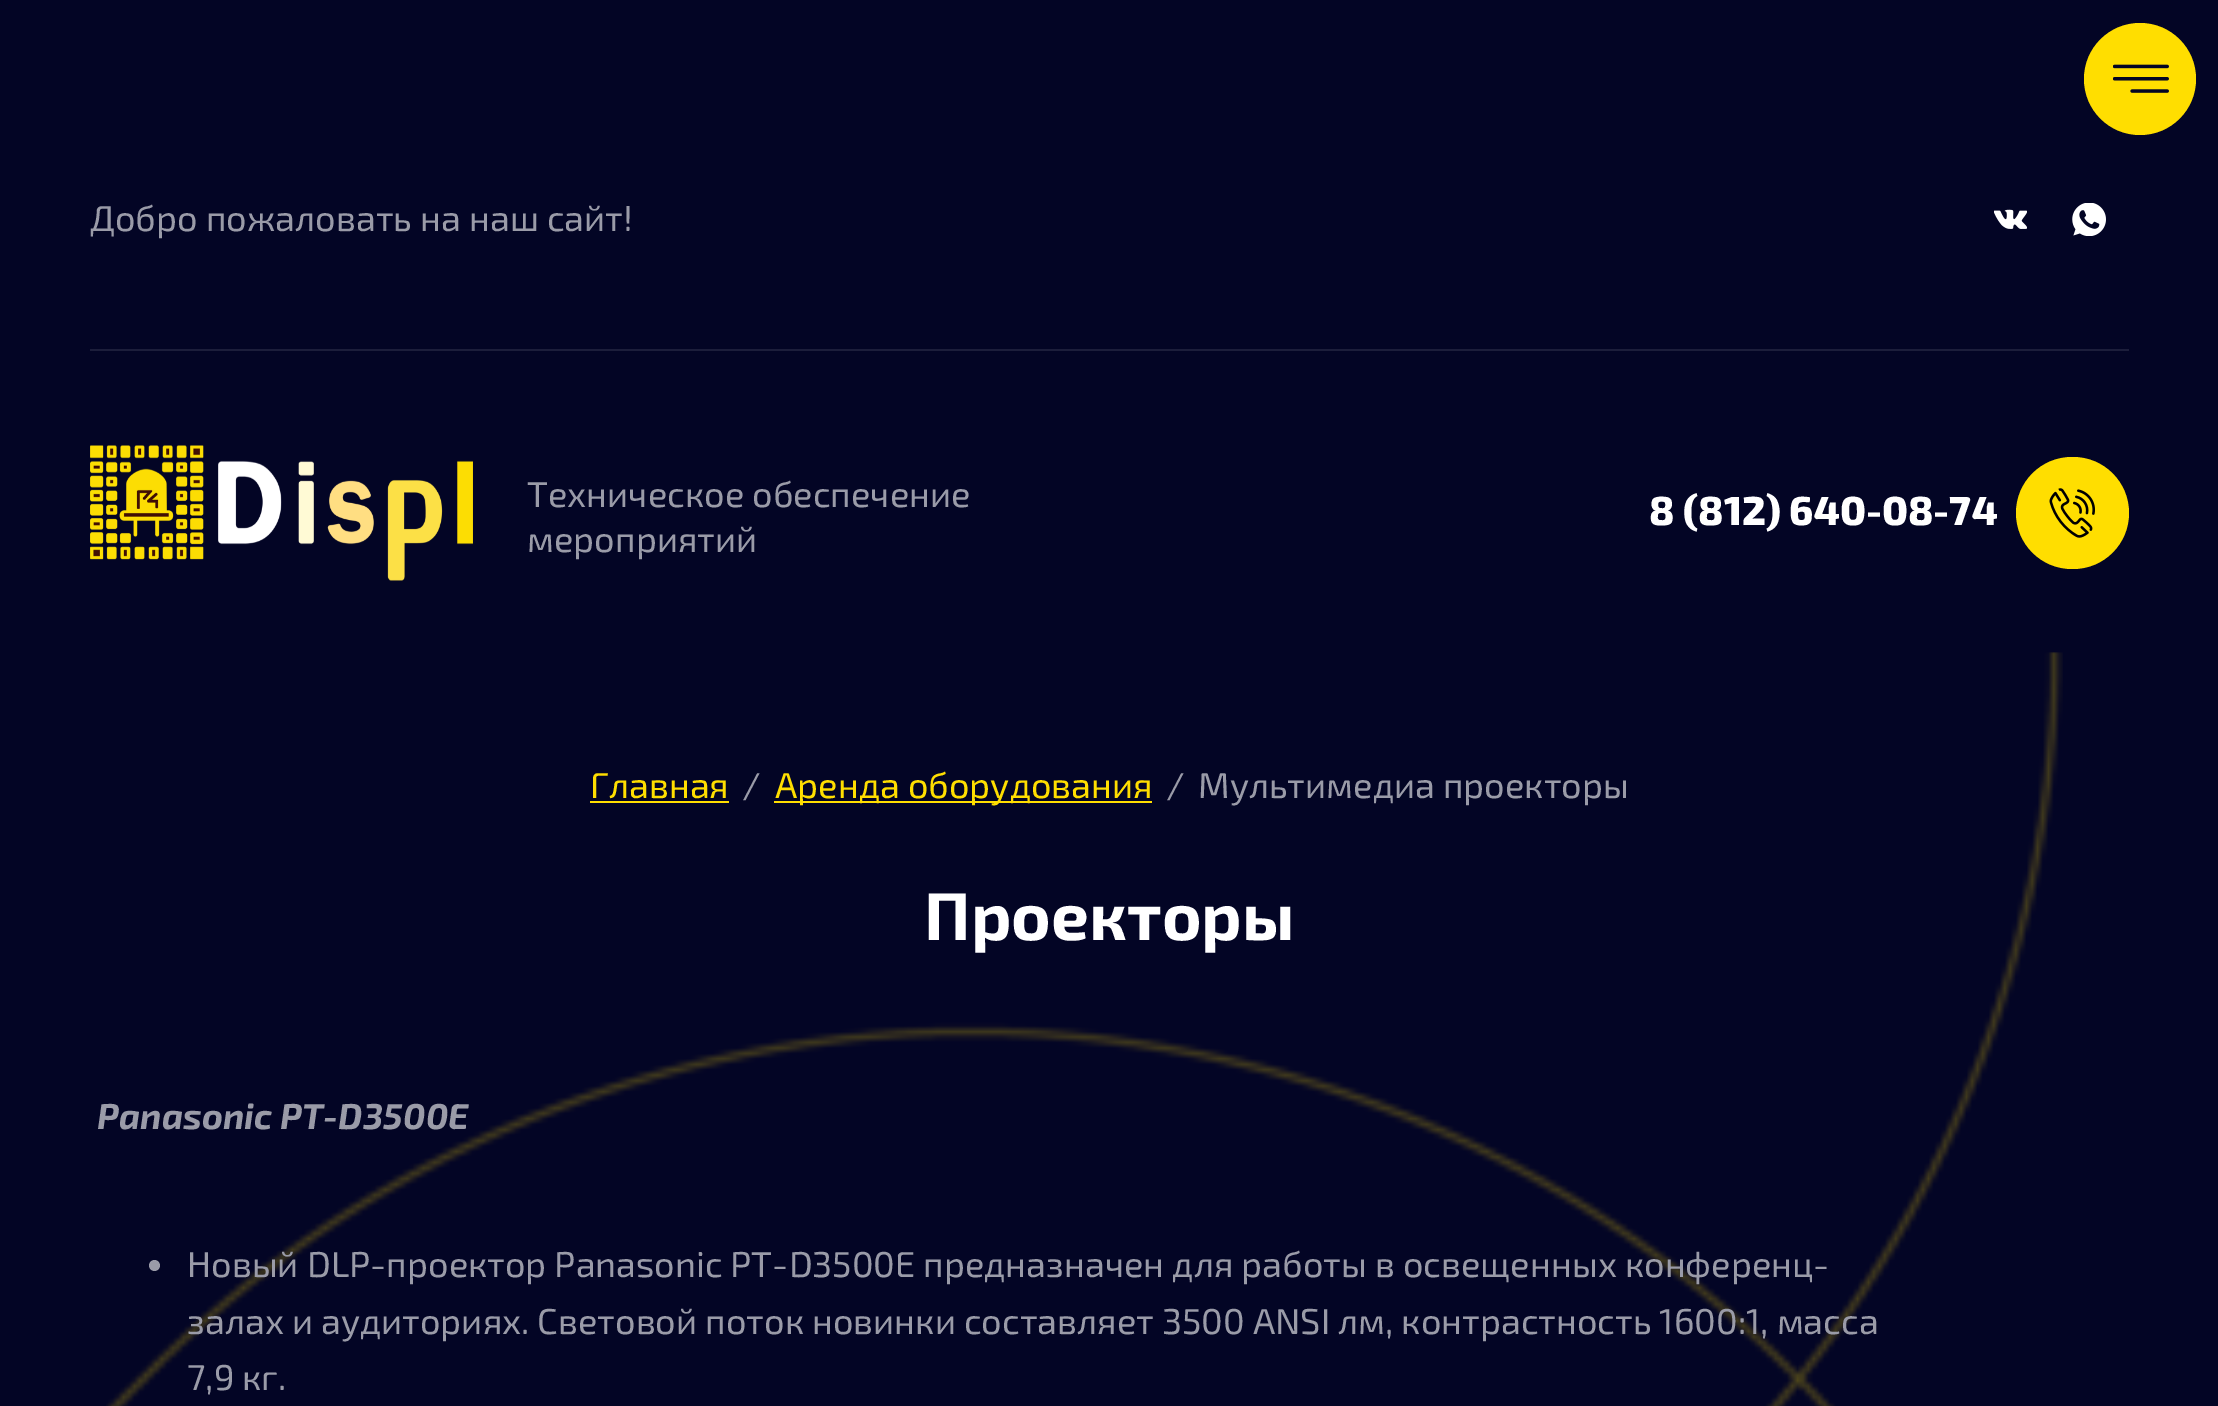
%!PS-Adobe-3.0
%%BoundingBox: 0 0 2218 1406
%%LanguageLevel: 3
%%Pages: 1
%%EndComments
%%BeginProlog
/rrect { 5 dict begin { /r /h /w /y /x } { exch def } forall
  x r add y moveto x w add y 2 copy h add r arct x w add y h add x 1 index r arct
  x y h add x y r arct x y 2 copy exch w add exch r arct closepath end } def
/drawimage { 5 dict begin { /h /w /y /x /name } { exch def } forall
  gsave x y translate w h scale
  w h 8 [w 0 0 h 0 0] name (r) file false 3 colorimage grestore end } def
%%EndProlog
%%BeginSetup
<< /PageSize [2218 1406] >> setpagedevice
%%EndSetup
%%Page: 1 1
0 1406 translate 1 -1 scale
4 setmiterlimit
0.012 0.02 0.145 setrgbcolor
0 0 2218 1406 rectfill
1 0.871 0 setrgbcolor
newpath 2140 79 56 0 360 arc closepath fill
(images/1.raw) 2113 64 56 29 drawimage
(images/2.raw) 1994 209 33 20 drawimage
(images/3.raw) 2072 203 34 33 drawimage
0.11 0.118 0.231 setrgbcolor
90 349 2039 2 rectfill
(images/4.raw) 90 445 383 136 drawimage
1 0.871 0 setrgbcolor
2016 457 113 112 56 rrect fill
(images/5.raw) 2049 488 46 50 drawimage
(images/6.raw) 106 652 1957 754 drawimage
590 801 139 2 rectfill
774 801 378 2 rectfill
0.604 0.608 0.659 setrgbcolor
newpath 154.5 1265.5 5.5 0 360 arc closepath fill
/Exo2-Regular [36 0 0 -36 0 0] selectfont
90 231 moveto (Добро пожаловать на наш сайт!) show
527 507 moveto (Техническое обеспечение) show
527 552 moveto (мероприятий) show
/Exo2-ExtraBold [40.5 0 0 -40.5 0 0] selectfont
1 setgray
1649 525 moveto (8 \(812\) 640-08-74) show
/Exo2-Regular [36 0 0 -36 0 0] selectfont
1 0.871 0 setrgbcolor
590 798 moveto (Главная) show
0.604 0.608 0.659 setrgbcolor
742 798 moveto (/) show
1 0.871 0 setrgbcolor
775 798 moveto (Аренда оборудования) show
0.604 0.608 0.659 setrgbcolor
1166 798 moveto (/) show
1198 798 moveto (Мультимедиа проекторы) show
/Exo2-Bold [67.5 0 0 -67.5 0 0] selectfont
1 setgray
924 940 moveto (Проекторы) show
/Exo2-BoldItalic [36 0 0 -36 0 0] selectfont
0.604 0.608 0.659 setrgbcolor
97 1129 moveto (Panasonic PT-D3500E) show
/Exo2-Regular [36 0 0 -36 0 0] selectfont
187 1277 moveto (Новый DLP-проектор Panasonic PT-D3500E предназначен для работы в освещенных конференц-) show
187 1334 moveto (залах и аудиториях. Световой поток новинки составляет 3500 ANSI лм, контрастность 1600:1, масса) show
187 1390 moveto (7,9 кг.) show
showpage
%%EOF
